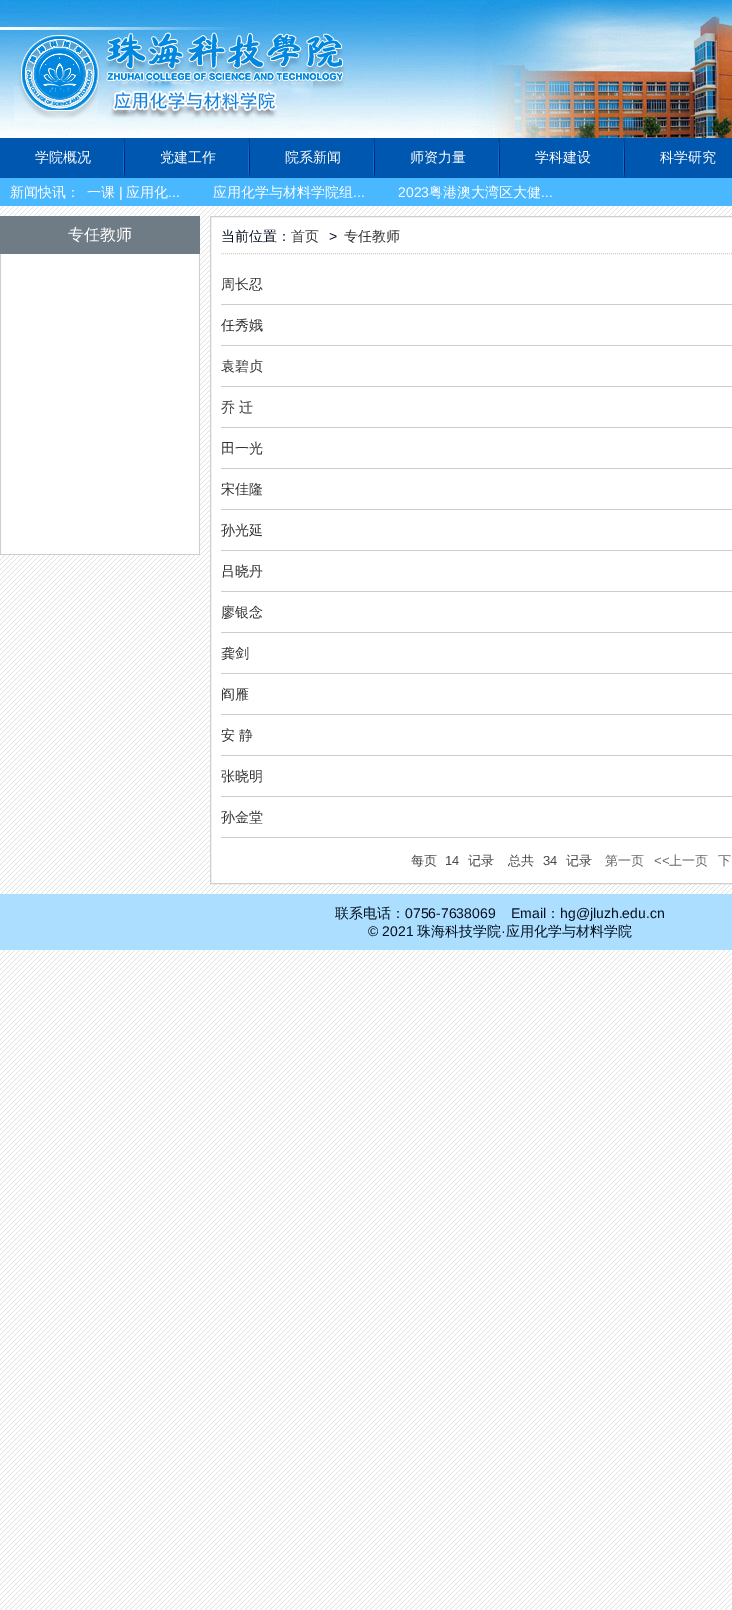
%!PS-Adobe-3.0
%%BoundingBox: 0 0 732 1610
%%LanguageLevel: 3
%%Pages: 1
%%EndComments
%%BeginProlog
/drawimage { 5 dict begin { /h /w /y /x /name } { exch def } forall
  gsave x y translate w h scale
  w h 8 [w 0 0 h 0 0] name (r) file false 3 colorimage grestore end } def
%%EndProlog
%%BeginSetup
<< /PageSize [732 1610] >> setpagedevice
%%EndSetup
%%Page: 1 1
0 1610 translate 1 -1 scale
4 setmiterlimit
1 setgray
0 0 732 1610 rectfill
(images/1.raw) 0 206 732 1404 drawimage
(images/2.raw) 0 0 732 138 drawimage
0 0.341 0.686 setrgbcolor
0 138 732 40 rectfill
(images/3.raw) 123 138 2 40 drawimage
(images/3.raw) 248 138 2 40 drawimage
(images/3.raw) 373 138 2 40 drawimage
(images/3.raw) 498 138 2 40 drawimage
(images/3.raw) 623 138 2 40 drawimage
0.29 0.722 1 setrgbcolor
0 178 732 28 rectfill
1 setgray
1 254 198 300 rectfill
0.435 0.486 0.522 setrgbcolor
0 216 200 38 rectfill
0.808 setgray
199 254 1 301 rectfill
0 554 200 1 rectfill
0 254 1 301 rectfill
1 setgray
newpath 210.5 216.5 moveto 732.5 216.5 lineto 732.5 883.5 lineto 210.5 883.5 lineto closepath gsave fill grestore
0.808 setgray
stroke
[1 1] 0 setdash
newpath 221 253.5 moveto 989 253.5 lineto stroke
0.8 setgray
221 304 511 1 rectfill
221 345 511 1 rectfill
221 386 511 1 rectfill
221 427 511 1 rectfill
221 468 511 1 rectfill
221 509 511 1 rectfill
221 550 511 1 rectfill
221 591 511 1 rectfill
221 632 511 1 rectfill
221 673 511 1 rectfill
221 714 511 1 rectfill
221 755 511 1 rectfill
221 796 511 1 rectfill
221 837 511 1 rectfill
0.675 0.871 1 setrgbcolor
0 894 732 56 rectfill
/WenQuanYiZenHei-Medium [14 0 0 -14 0 0] selectfont
1 setgray
35 162 moveto (学院概况) show
160 162 moveto (党建工作) show
285 162 moveto (院系新闻) show
410 162 moveto (师资力量) show
535 162 moveto (学科建设) show
660 162 moveto (科学研究) show
10 197 moveto (新闻快讯：) show
87 197 moveto (一课) show
/LiberationSans-Regular [14 0 0 -14 0 0] selectfont
119 197 moveto (|) show
/WenQuanYiZenHei-Medium [14 0 0 -14 0 0] selectfont
126 197 moveto (应用化) show
/LiberationSans-Regular [14 0 0 -14 0 0] selectfont
168 197 moveto (...) show
/WenQuanYiZenHei-Medium [14 0 0 -14 0 0] selectfont
213 197 moveto (应用化学与材料学院组) show
/LiberationSans-Regular [14 0 0 -14 0 0] selectfont
353 197 moveto (...) show
398 197 moveto (2023) show
/WenQuanYiZenHei-Medium [14 0 0 -14 0 0] selectfont
429 197 moveto (粤港澳大湾区大健) show
/LiberationSans-Regular [14 0 0 -14 0 0] selectfont
541 197 moveto (...) show
/WenQuanYiZenHei-Medium [16 0 0 -16 0 0] selectfont
68 240 moveto (专任教师) show
/WenQuanYiZenHei-Medium [14 0 0 -14 0 0] selectfont
0.012 0.067 0.122 setrgbcolor
221 241 moveto (当前位置：) show
0.2 setgray
291 241 moveto (首页) show
/LiberationSans-Regular [14 0 0 -14 0 0] selectfont
0.012 0.067 0.122 setrgbcolor
329 241 moveto (>) show
/WenQuanYiZenHei-Medium [14 0 0 -14 0 0] selectfont
0.2 setgray
344 241 moveto (专任教师) show
221 289 moveto (周长忍) show
221 330 moveto (任秀娥) show
221 371 moveto (袁碧贞) show
221 412 moveto (乔) show
239 412 moveto (迁) show
221 453 moveto (田一光) show
221 494 moveto (宋佳隆) show
221 535 moveto (孙光延) show
221 576 moveto (吕晓丹) show
221 617 moveto (廖银念) show
221 658 moveto (龚剑) show
221 699 moveto (阎雁) show
221 740 moveto (安) show
239 740 moveto (静) show
221 781 moveto (张晓明) show
221 822 moveto (孙金堂) show
/WenQuanYiZenHei-Medium [13 0 0 -13 0 0] selectfont
0.286 setgray
411 865 moveto (每页) show
/LiberationSans-Regular [13 0 0 -13 0 0] selectfont
445 865 moveto (14) show
/WenQuanYiZenHei-Medium [13 0 0 -13 0 0] selectfont
468 865 moveto (记录) show
508 865 moveto (总共) show
/LiberationSans-Regular [13 0 0 -13 0 0] selectfont
543 865 moveto (34) show
/WenQuanYiZenHei-Medium [13 0 0 -13 0 0] selectfont
566 865 moveto (记录) show
0.4 setgray
605 865 moveto (第一页) show
/LiberationSans-Regular [13 0 0 -13 0 0] selectfont
654 865 moveto (<<) show
/WenQuanYiZenHei-Medium [13 0 0 -13 0 0] selectfont
669 865 moveto (上一页) show
718 865 moveto (下) show
/WenQuanYiZenHei-Medium [14 0 0 -14 0 0] selectfont
0.012 0.067 0.122 setrgbcolor
335 918 moveto (联系电话：) show
/LiberationSans-Regular [14 0 0 -14 0 0] selectfont
405 918 moveto (0756-7638069    Email) show
/WenQuanYiZenHei-Medium [14 0 0 -14 0 0] selectfont
546 918 moveto (：) show
/LiberationSans-Regular [14 0 0 -14 0 0] selectfont
560 918 moveto (hg@jluzh.edu.cn) show
368 936 moveto (© 2021) show
/WenQuanYiZenHei-Medium [14 0 0 -14 0 0] selectfont
417 936 moveto (珠海科技学院) show
/LiberationSans-Regular [14 0 0 -14 0 0] selectfont
501 936 moveto (·) show
/WenQuanYiZenHei-Medium [14 0 0 -14 0 0] selectfont
506 936 moveto (应用化学与材料学院) show
showpage
%%EOF
